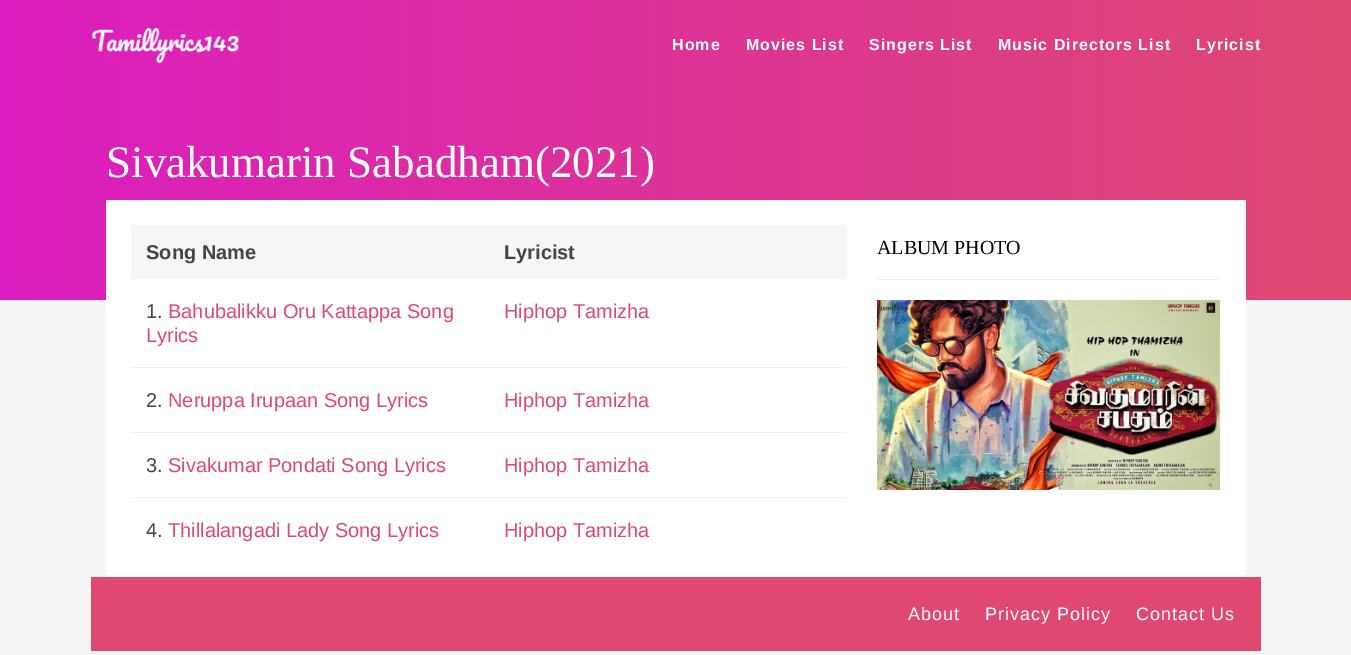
%!PS-Adobe-3.0
%%BoundingBox: 0 0 1351 655
%%LanguageLevel: 3
%%Pages: 1
%%EndComments
%%BeginProlog
/drawimage { 5 dict begin { /h /w /y /x /name } { exch def } forall
  gsave x y translate w h scale
  w h 8 [w 0 0 h 0 0] name (r) file false 3 colorimage grestore end } def
%%EndProlog
%%BeginSetup
<< /PageSize [1351 655] >> setpagedevice
%%EndSetup
%%Page: 1 1
0 655 translate 1 -1 scale
4 setmiterlimit
0.961 setgray
0 0 1351 655 rectfill
gsave newpath 0 0 moveto 1351 0 lineto 1351 300 lineto 0 300 lineto closepath clip newpath
<< /ShadingType 2 /ColorSpace /DeviceRGB /Coords [0 150 1351 150] /Extend [true true] /Function << /FunctionType 2 /Domain [0 1] /C0 [0.859 0.114 0.753] /C1 [0.875 0.286 0.443] /N 1 >> >> shfill grestore
(images/1.raw) 91 28 149 35 drawimage
1 setgray
106 200 1140 377 rectfill
0.965 setgray
131 225 716 54 rectfill
0.941 setgray
131 367 716 1 rectfill
131 432 716 1 rectfill
131 497 716 1 rectfill
877 279 343 1 rectfill
(images/2.raw) 877 300 343 190 drawimage
0.875 0.286 0.443 setrgbcolor
91 577 1170 74 rectfill
/LiberationSans-Bold [16 0 0 -16 0 0] selectfont
1 setgray
672 50 moveto 1 0 (Home) ashow
746 50 moveto 1 0 (Movies List) ashow
869 50 moveto 1 0 (Singers List) ashow
998 50 moveto 1 0 (Music Directors List) ashow
1196 50 moveto 1 0 (Lyricist) ashow
/LiberationSerif-Regular [45 0 0 -45 0 0] selectfont
106 177 moveto (Sivakumarin Sabadham\(2021\)) show
/LiberationSans-Bold [20 0 0 -20 0 0] selectfont
0.267 setgray
146 259 moveto (Song Name) show
504 259 moveto (Lyricist) show
/LiberationSans-Regular [20 0 0 -20 0 0] selectfont
146 318 moveto (1.) show
0.875 0.286 0.443 setrgbcolor
168 318 moveto (Bahubalikku Oru Kattappa Song) show
146 342 moveto (Lyrics) show
504 318 moveto (Hiphop Tamizha) show
0.267 setgray
146 407 moveto (2.) show
0.875 0.286 0.443 setrgbcolor
168 407 moveto (Neruppa Irupaan Song Lyrics) show
504 407 moveto (Hiphop Tamizha) show
0.267 setgray
146 472 moveto (3.) show
0.875 0.286 0.443 setrgbcolor
168 472 moveto (Sivakumar Pondati Song Lyrics) show
504 472 moveto (Hiphop Tamizha) show
0.267 setgray
146 537 moveto (4.) show
0.875 0.286 0.443 setrgbcolor
168 537 moveto (Thillalangadi Lady Song Lyrics) show
504 537 moveto (Hiphop Tamizha) show
/LiberationSerif-Regular [20 0 0 -20 0 0] selectfont
0 setgray
877 254 moveto (ALBUM PHOTO) show
/LiberationSans-Regular [18 0 0 -18 0 0] selectfont
1 setgray
908 620 moveto 1 0 (About) ashow
985 620 moveto 1 0 (Privacy Policy) ashow
1136 620 moveto 1 0 (Contact Us) ashow
showpage
%%EOF
